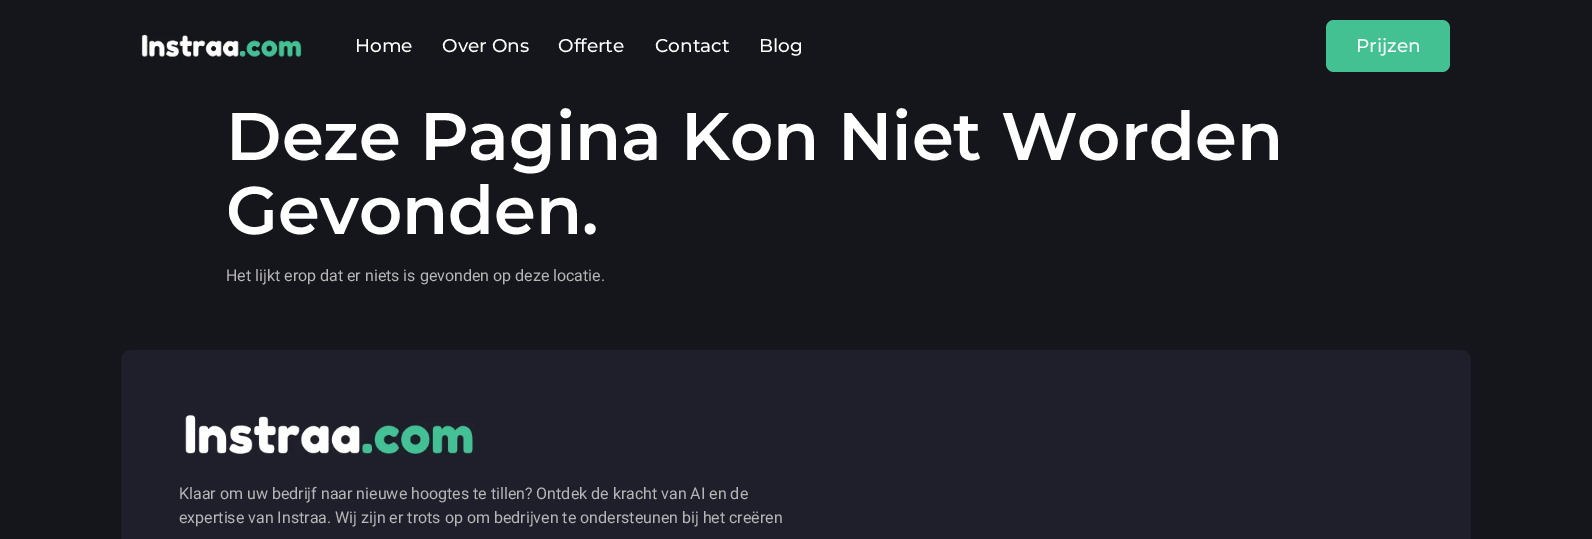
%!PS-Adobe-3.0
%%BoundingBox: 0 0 1592 539
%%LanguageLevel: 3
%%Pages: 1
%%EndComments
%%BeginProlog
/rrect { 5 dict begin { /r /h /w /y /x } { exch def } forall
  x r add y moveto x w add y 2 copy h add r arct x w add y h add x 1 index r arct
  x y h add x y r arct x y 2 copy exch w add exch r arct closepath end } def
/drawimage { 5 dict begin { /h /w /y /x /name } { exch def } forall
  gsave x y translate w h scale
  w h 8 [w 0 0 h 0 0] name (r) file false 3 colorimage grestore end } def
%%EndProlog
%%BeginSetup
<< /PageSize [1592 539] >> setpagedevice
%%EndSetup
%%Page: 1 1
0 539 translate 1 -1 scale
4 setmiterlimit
0.082 0.086 0.11 setrgbcolor
0 0 1592 539 rectfill
(images/1.raw) 141 34 162 24 drawimage
0.263 0.757 0.576 setrgbcolor
1326 20 124 52 8 rrect fill
0.122 0.122 0.169 setrgbcolor
121 350 1350 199 10 rrect fill
(images/2.raw) 185 414 290 41 drawimage
/Montserrat-Medium [18.5 0 0 -18.5 0 0] selectfont
1 setgray
355 52 moveto (Home) show
442 52 moveto (Over Ons) show
558 52 moveto (Offerte) show
655 52 moveto (Contact) show
759 52 moveto (Blog) show
1356 52 moveto (Prijzen) show
/Montserrat-SemiBold [67.25 0 0 -67.25 0 0] selectfont
226 160 moveto (Deze Pagina Kon Niet Worden) show
226 234 moveto (Gevonden.) show
/Roboto-Regular [16 0 0 -16 0 0] selectfont
0.714 setgray
226 281 moveto (Het lijkt erop dat er niets is gevonden op deze locatie.) show
179 499 moveto (Klaar om uw bedrijf naar nieuwe hoogtes te tillen? Ontdek de kracht van AI en de) show
179 523 moveto (expertise van Instraa. Wij zijn er trots op om bedrijven te ondersteunen bij het creëren) show
showpage
%%EOF
